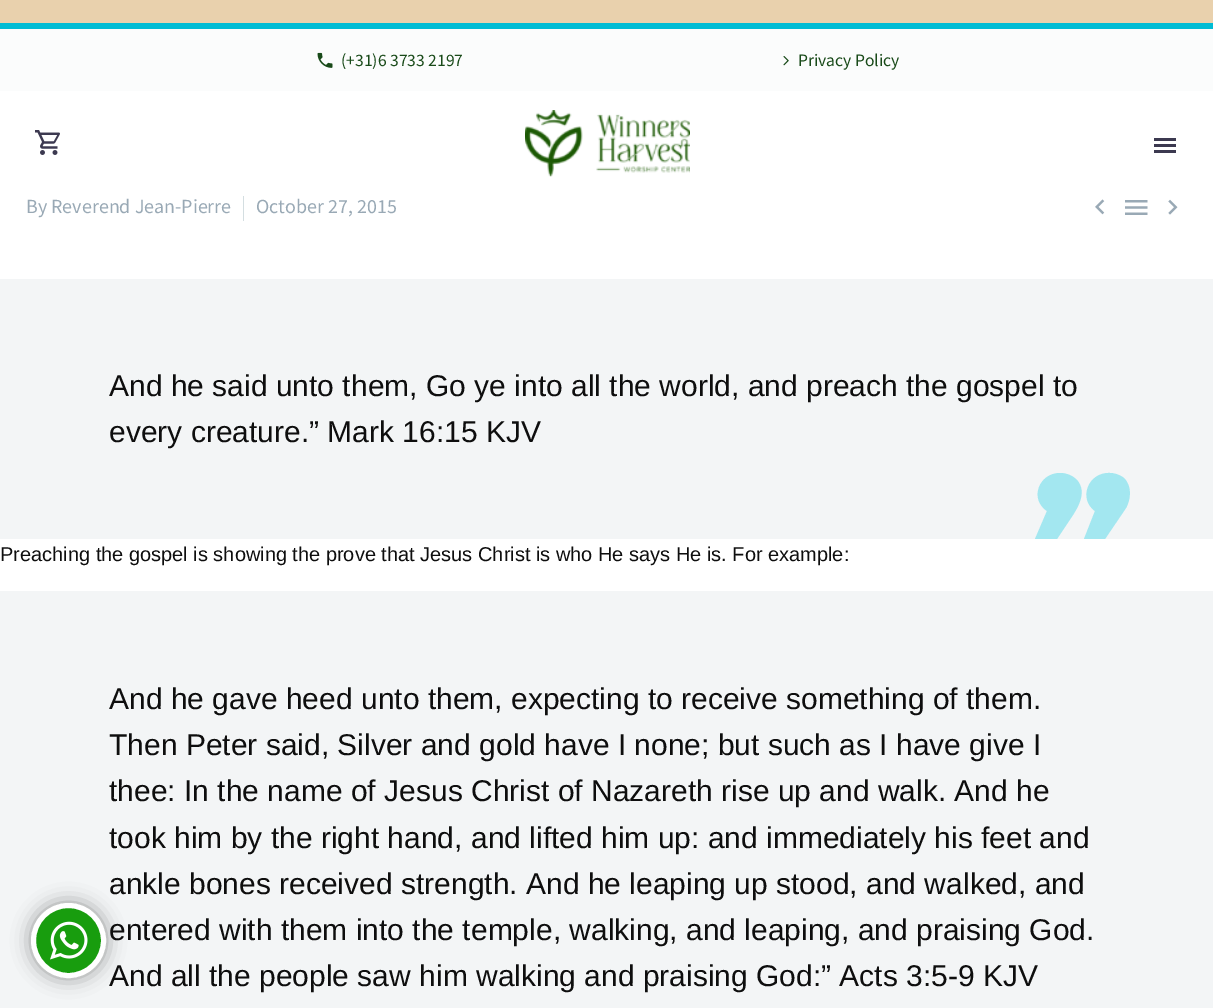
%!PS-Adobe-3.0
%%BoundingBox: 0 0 1213 1008
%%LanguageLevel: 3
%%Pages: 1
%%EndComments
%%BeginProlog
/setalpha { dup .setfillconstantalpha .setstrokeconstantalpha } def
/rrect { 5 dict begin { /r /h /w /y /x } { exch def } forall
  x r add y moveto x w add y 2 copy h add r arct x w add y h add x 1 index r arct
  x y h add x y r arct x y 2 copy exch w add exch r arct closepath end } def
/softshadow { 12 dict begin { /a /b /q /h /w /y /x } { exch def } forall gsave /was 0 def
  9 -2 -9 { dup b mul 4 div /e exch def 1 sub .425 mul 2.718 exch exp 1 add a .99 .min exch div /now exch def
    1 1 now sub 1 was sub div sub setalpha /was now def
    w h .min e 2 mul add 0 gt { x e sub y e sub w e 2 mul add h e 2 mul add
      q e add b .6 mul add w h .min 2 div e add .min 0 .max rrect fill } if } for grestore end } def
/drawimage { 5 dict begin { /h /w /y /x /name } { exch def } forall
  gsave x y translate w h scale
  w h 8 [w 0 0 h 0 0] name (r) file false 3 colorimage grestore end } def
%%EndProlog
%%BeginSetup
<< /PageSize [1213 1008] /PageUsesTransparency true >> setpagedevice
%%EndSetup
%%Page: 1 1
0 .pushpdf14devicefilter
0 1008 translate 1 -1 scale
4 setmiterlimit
0.914 0.82 0.678 setrgbcolor
0 0 1213 1008 rectfill
0.984 0.988 0.988 setrgbcolor
0 29 1213 62 rectfill
0 0.737 0.831 setrgbcolor
0 23 1213 6 rectfill
(images/1.raw) 317 52 16 16 drawimage
(images/2.raw) 783 56 6 10 drawimage
1 setgray
0 91 1213 500 rectfill
(images/3.raw) 35 130 25 25 drawimage
(images/4.raw) 525 110 165 67 drawimage
0.235 0.224 0.314 setrgbcolor
1154 138 22 3 rectfill
1154 144 22 3 rectfill
1154 150 22 3 rectfill
0.831 0.871 0.882 setrgbcolor
243 196 1 25 rectfill
(images/5.raw) 1095 199 10 16 drawimage
(images/6.raw) 1125 200 23 15 drawimage
(images/7.raw) 1168 199 10 16 drawimage
0.953 0.961 0.965 setrgbcolor
0 279 1213 260 rectfill
0.639 0.906 0.941 setrgbcolor
newpath 1124 478 moveto 1120 475 1115 473 1110 473 curveto 1088 472 1078 499 1095 511 curveto 1084 539 lineto 1105 539 lineto 1126 508 lineto 1131 499 1132 486 1124 478 curveto closepath 1060 473 moveto 1039 473 1029 499 1047 511 curveto 1035 539 lineto 1057 539 lineto 1069 521 lineto 1077 509 1088 493 1077 480 curveto 1072 475 1066 473 1060 473 curveto closepath fill
0.953 0.961 0.965 setrgbcolor
0 591 1213 417 rectfill
0 setgray
31 903 75 75 37.5 9.5 0.4 softshadow
0.094 0.616 0.055 setrgbcolor
newpath 68.5 940.5 35 0 360 arc closepath gsave fill grestore
1 setgray
5 setlinewidth
stroke
(images/8.raw) 50 921 38 39 drawimage
/SourceSansPro-Regular [17.5 0 0 -17.5 0 0] selectfont
0.098 0.29 0.098 setrgbcolor
341 66 moveto (\(+31\)6 3733 2197) show
798 66 moveto (Privacy Policy) show
/SourceSansPro-Regular [20 0 0 -20 0 0] selectfont
0.6 0.663 0.71 setrgbcolor
26 213 moveto (By Reverend Jean-Pierre) show
256 213 moveto (October 27, 2015) show
/LiberationSans-Regular [30 0 0 -30 0 0] selectfont
0.055 setgray
109 396 moveto (And he said unto them, Go ye into all the world, and preach the gospel to) show
109 442 moveto (every creature.” Mark 16:15 KJV) show
/LiberationSans-Regular [20 0 0 -20 0 0] selectfont
0 561 moveto (Preaching the gospel is showing the prove that Jesus Christ is who He says He is. For example:) show
/LiberationSans-Regular [30 0 0 -30 0 0] selectfont
109 709 moveto (And he gave heed unto them, expecting to receive something of them.) show
109 755 moveto (Then Peter said, Silver and gold have I none; but such as I have give I) show
109 801 moveto (thee: In the name of Jesus Christ of Nazareth rise up and walk. And he) show
109 848 moveto (took him by the right hand, and lifted him up: and immediately his feet and) show
109 894 moveto (ankle bones received strength. And he leaping up stood, and walked, and) show
109 940 moveto (entered with them into the temple, walking, and leaping, and praising God.) show
109 986 moveto (And all the people saw him walking and praising God:” Acts 3:5-9 KJV) show
.poppdf14devicefilter showpage
%%EOF
